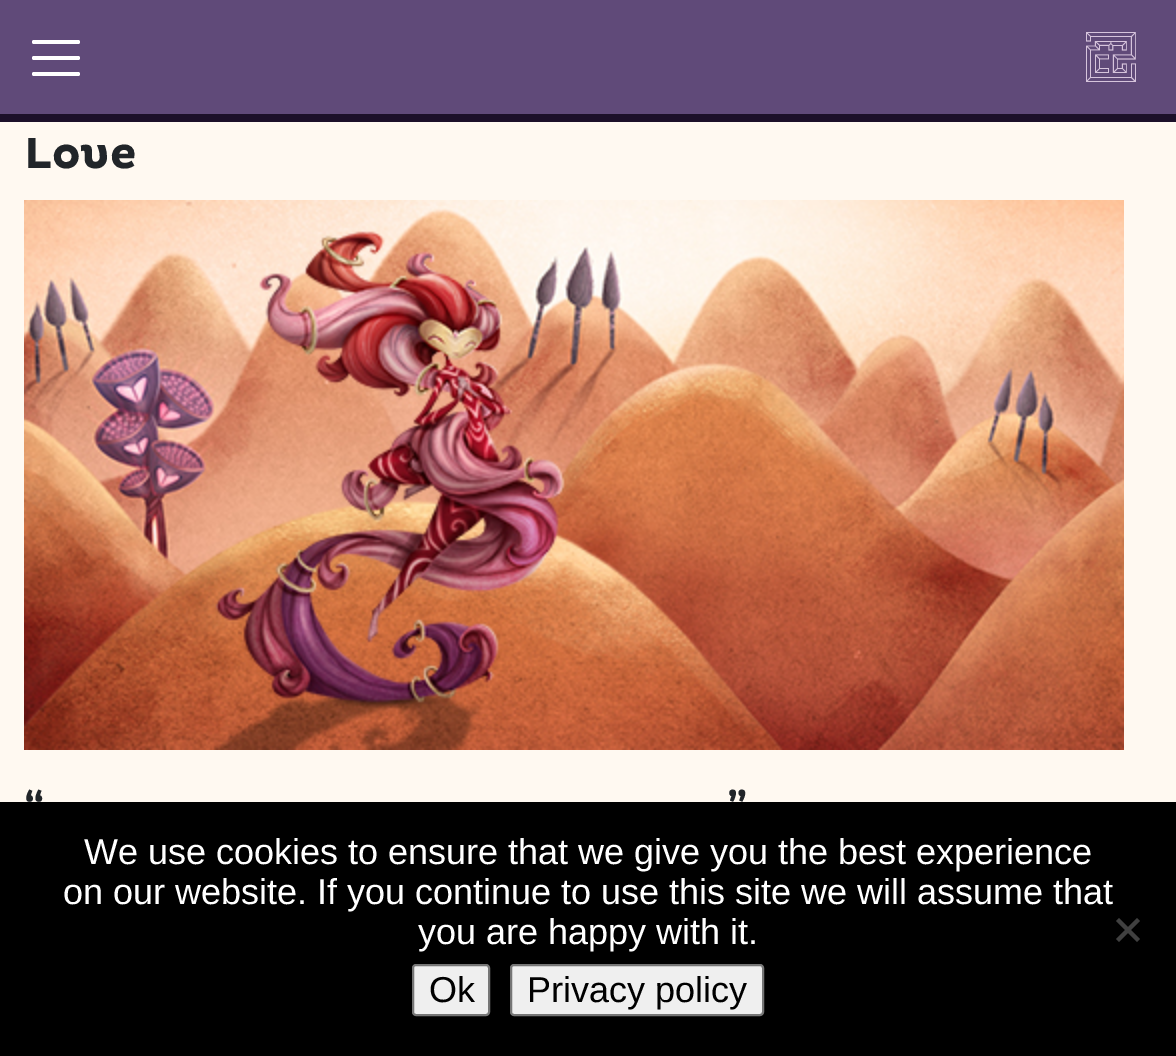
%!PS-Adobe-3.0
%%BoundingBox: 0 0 1176 1056
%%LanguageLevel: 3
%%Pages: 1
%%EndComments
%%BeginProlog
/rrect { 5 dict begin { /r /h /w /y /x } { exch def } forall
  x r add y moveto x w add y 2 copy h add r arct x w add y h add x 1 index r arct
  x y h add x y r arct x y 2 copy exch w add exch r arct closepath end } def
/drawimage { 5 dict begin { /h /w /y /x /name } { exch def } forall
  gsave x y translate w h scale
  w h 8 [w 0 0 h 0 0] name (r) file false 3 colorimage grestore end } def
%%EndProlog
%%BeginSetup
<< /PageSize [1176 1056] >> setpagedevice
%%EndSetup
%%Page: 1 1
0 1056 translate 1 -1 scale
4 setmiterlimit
1 0.976 0.945 setrgbcolor
0 0 1176 1056 rectfill
0.376 0.29 0.475 setrgbcolor
0 0 1176 114 rectfill
0.11 0.063 0.161 setrgbcolor
0 114 1176 8 rectfill
1 setgray
32 40 48 4 2 rrect fill
32 56 48 4 2 rrect fill
32 72 48 4 2 rrect fill
(images/1.raw) 1086 32 50 50 drawimage
(images/2.raw) 24 200 1100 550 drawimage
0 setgray
0 802 1176 254 rectfill
0.251 setgray
newpath 1137 918 moveto 1140 921 lineto 1119 942 lineto 1116 939 lineto closepath fill
newpath 1116 921 moveto 1119 918 lineto 1140 939 lineto 1137 942 lineto closepath fill
0.937 setgray
413 965 76 50 3 rrect gsave fill grestore
0.463 setgray
2 setlinewidth
stroke
0.937 setgray
511 965 252 50 3 rrect gsave fill grestore
0.463 setgray
stroke
/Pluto-Bold [44 0 0 -44 0 0] selectfont
0.129 0.145 0.161 setrgbcolor
24 168 moveto (Love) show
/Pluto-Bold [40 0 0 -40 0 0] selectfont
24 817 moveto (“) show
727 817 moveto (”) show
/LiberationSans-Regular [36 0 0 -36 0 0] selectfont
1 setgray
84 864 moveto (We use cookies to ensure that we give you the best experience) show
63 904 moveto (on our website. If you continue to use this site we will assume that) show
418 944 moveto (you are happy with it.) show
0 setgray
429 1002 moveto (Ok) show
527 1002 moveto (Privacy policy) show
showpage
%%EOF
